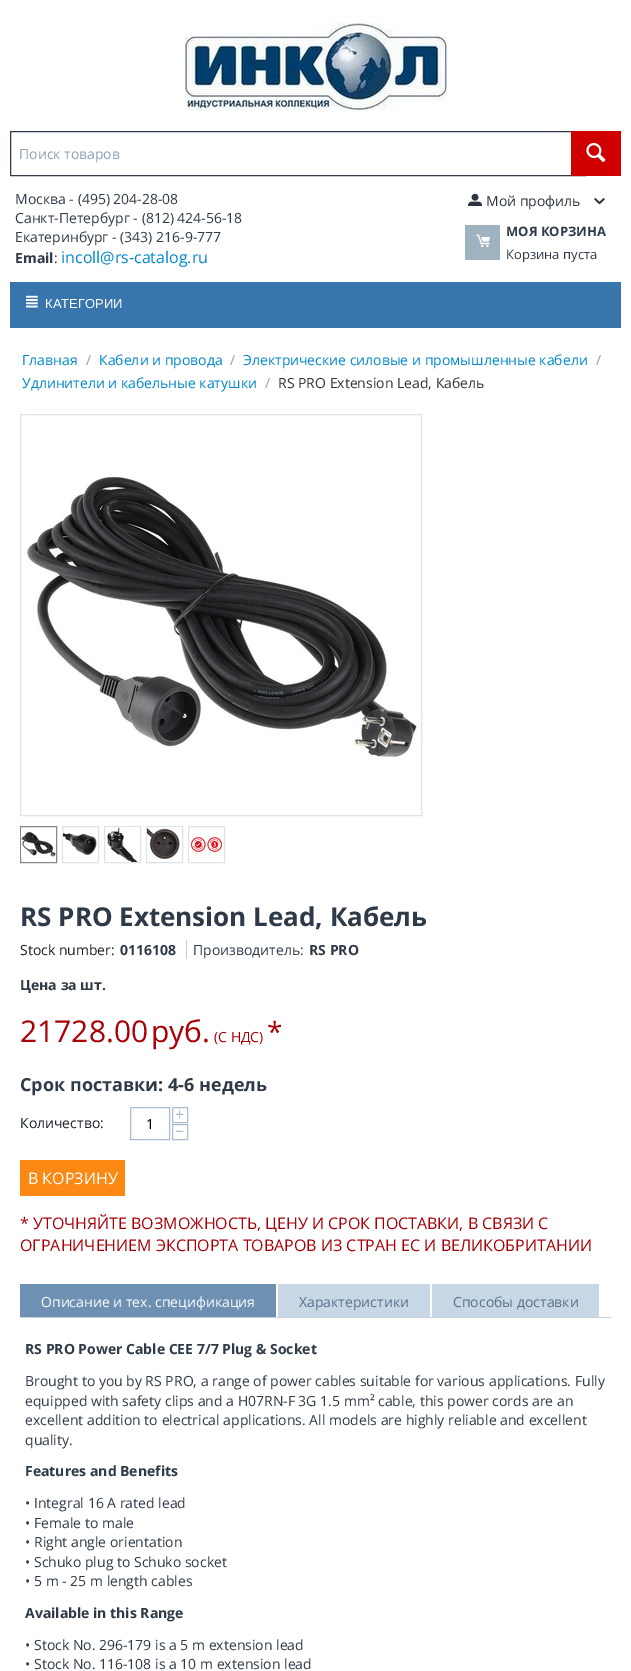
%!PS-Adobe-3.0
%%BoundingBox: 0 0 631 1671
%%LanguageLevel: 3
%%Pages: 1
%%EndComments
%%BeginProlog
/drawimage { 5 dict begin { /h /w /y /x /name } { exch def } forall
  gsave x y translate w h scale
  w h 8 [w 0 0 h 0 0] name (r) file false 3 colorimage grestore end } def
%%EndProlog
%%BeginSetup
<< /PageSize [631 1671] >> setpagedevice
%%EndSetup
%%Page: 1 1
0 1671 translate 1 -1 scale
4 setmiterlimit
1 setgray
0 0 631 1671 rectfill
(images/1.raw) 185 23 262 88 drawimage
0.18 0.227 0.278 setrgbcolor
10.5 131.5 575 44 rectstroke
0.816 0 0 setrgbcolor
571 131 50 45 rectfill
(images/2.raw) 586 143 20 19 drawimage
(images/3.raw) 468 193 14 13 drawimage
(images/4.raw) 594 198 11 7 drawimage
0.624 0.698 0.753 setrgbcolor
465 225 35 35 rectfill
(images/5.raw) 476 234 14 14 drawimage
0.22 0.459 0.678 setrgbcolor
10 282 611 46 rectfill
(images/6.raw) 26 295 12 13 drawimage
0.863 0.89 0.918 setrgbcolor
20.5 414.5 401 401 rectstroke
(images/7.raw) 25 476 395 282 drawimage
0.533 setgray
20.5 826.5 36 36 rectstroke
(images/8.raw) 21 829 35 28 drawimage
0.863 0.89 0.918 setrgbcolor
62.5 826.5 36 36 rectstroke
(images/9.raw) 63 833 34 23 drawimage
104.5 826.5 36 36 rectstroke
(images/10.raw) 107 827 31 35 drawimage
146.5 826.5 36 36 rectstroke
(images/11.raw) 147 827 35 32 drawimage
188.5 826.5 36 36 rectstroke
(images/12.raw) 189 835 35 24 drawimage
0.761 0.8 0.808 setrgbcolor
186 940 1 19 rectfill
0.675 0.741 0.804 setrgbcolor
172.5 1107.5 15 15 rectstroke
130.5 1107.5 39 32 rectstroke
172.5 1124.5 15 15 rectstroke
0.984 0.537 0.075 setrgbcolor
20 1160 105 36 rectfill
0.776 0.82 0.867 setrgbcolor
20 1317 591 1 rectfill
0.427 0.565 0.702 setrgbcolor
20 1284 256 33 rectfill
0.784 0.843 0.902 setrgbcolor
278 1284 152 33 rectfill
432 1284 167 33 rectfill
/OpenSans-Regular [14 0 0 -14 0 0] selectfont
0.549 0.627 0.71 setrgbcolor
19 159 moveto (Поиск товаров) show
0.18 0.227 0.278 setrgbcolor
15 204 moveto (Москва - \(495\) 204-28-08) show
15 223 moveto (Санкт-Петербург - \(812\) 424-56-18) show
15 242 moveto (Екатеринбург - \(343\) 216-9-777) show
/OpenSans-Bold [14 0 0 -14 0 0] selectfont
15 263 moveto (Email) show
/OpenSans-Regular [14 0 0 -14 0 0] selectfont
54 263 moveto (:) show
/OpenSans-Regular [16 0 0 -16 0 0] selectfont
0 0.533 0.8 setrgbcolor
61 263 moveto (incoll@rs-catalog.ru) show
/OpenSans-Regular [14 0 0 -14 0 0] selectfont
0.176 0.208 0.251 setrgbcolor
486 206 moveto (Мой профиль) show
/OpenSans-Bold [13 0 0 -13 0 0] selectfont
0.18 0.227 0.278 setrgbcolor
506 236 moveto (МОЯ КОРЗИНА) show
/OpenSans-Regular [13 0 0 -13 0 0] selectfont
506 259 moveto (Корзина пуста) show
/LiberationSans-Regular [13 0 0 -13 0 0] selectfont
1 setgray
45 308 moveto (КАТЕГОРИИ) show
/OpenSans-Regular [14 0 0 -14 0 0] selectfont
0 0.533 0.8 setrgbcolor
22 365 moveto (Главная) show
0.549 0.627 0.71 setrgbcolor
86 365 moveto (/) show
0 0.533 0.8 setrgbcolor
99 365 moveto (Кабели и провода) show
0.549 0.627 0.71 setrgbcolor
230 365 moveto (/) show
0 0.533 0.8 setrgbcolor
243 365 moveto (Электрические силовые и промышленные кабели) show
0.549 0.627 0.71 setrgbcolor
596 365 moveto (/) show
0 0.533 0.8 setrgbcolor
22 388 moveto (Удлинители и кабельные катушки) show
0.549 0.627 0.71 setrgbcolor
265 388 moveto (/) show
0.2 setgray
278 388 moveto (RS PRO Extension Lead, Кабель) show
/OpenSans-Bold [26 0 0 -26 0 0] selectfont
0.18 0.227 0.278 setrgbcolor
20 926 moveto (RS PRO Extension Lead, Кабель) show
/OpenSans-Regular [14 0 0 -14 0 0] selectfont
0.102 0.129 0.157 setrgbcolor
20 955 moveto (Stock number:) show
/OpenSans-Bold [14 0 0 -14 0 0] selectfont
0.18 0.227 0.278 setrgbcolor
120 955 moveto (0116108) show
/OpenSans-Regular [14 0 0 -14 0 0] selectfont
193 955 moveto (Производитель:) show
/OpenSans-Bold [14 0 0 -14 0 0] selectfont
309 955 moveto (RS PRO) show
20 990 moveto (Цена за шт.) show
/OpenSans-Regular [30 0 0 -30 0 0] selectfont
0.659 0 0.024 setrgbcolor
20 1042 moveto (21728.00) show
151 1042 moveto (руб.) show
/OpenSans-Regular [28 0 0 -28 0 0] selectfont
267 1042 moveto (*) show
/OpenSans-Regular [14 0 0 -14 0 0] selectfont
214 1042 moveto (\(С НДС\)) show
/OpenSans-Bold [18 0 0 -18 0 0] selectfont
0.18 0.227 0.278 setrgbcolor
20 1091 moveto (Срок поставки: 4-6 недель) show
/OpenSans-Regular [14 0 0 -14 0 0] selectfont
0.102 0.129 0.157 setrgbcolor
20 1128 moveto (Количество:) show
/OpenSans-Regular [16 0 0 -16 0 0] selectfont
0.675 0.741 0.804 setrgbcolor
175 1120 moveto (+) show
/OpenSans-Regular [14 0 0 -14 0 0] selectfont
0 setgray
146 1129 moveto (1) show
/OpenSans-Regular [16 0 0 -16 0 0] selectfont
0.675 0.741 0.804 setrgbcolor
175 1137 moveto (−) show
1 setgray
28 1184 moveto (В КОРЗИНУ) show
0.659 0 0.024 setrgbcolor
20 1229 moveto (* УТОЧНЯЙТЕ ВОЗМОЖНОСТЬ, ЦЕНУ И СРОК ПОСТАВКИ, В СВЯЗИ С) show
20 1251 moveto (ОГРАНИЧЕНИЕМ ЭКСПОРТА ТОВАРОВ ИЗ СТРАН ЕС И ВЕЛИКОБРИТАНИИ) show
/OpenSans-Regular [14 0 0 -14 0 0] selectfont
1 setgray
41 1307 moveto (Описание и тех. спецификация) show
0.337 0.443 0.549 setrgbcolor
299 1307 moveto (Характеристики) show
453 1307 moveto (Способы доставки) show
/OpenSans-Bold [14 0 0 -14 0 0] selectfont
0.18 0.227 0.278 setrgbcolor
25 1354 moveto (RS PRO Power Cable CEE 7/7 Plug & Socket) show
/OpenSans-Regular [14 0 0 -14 0 0] selectfont
25 1386 moveto (Brought to you by RS PRO, a range of power cables suitable for various applications. Fully) show
25 1406 moveto (equipped with safety clips and a H07RN-F 3G 1.5 mm² cable, this power cords are an) show
25 1425 moveto (excellent addition to electrical applications. All models are highly reliable and excellent) show
25 1445 moveto (quality.) show
/OpenSans-Bold [14 0 0 -14 0 0] selectfont
25 1476 moveto (Features and Benefits) show
/OpenSans-Regular [14 0 0 -14 0 0] selectfont
25 1508 moveto (• Integral 16 A rated lead) show
25 1528 moveto (• Female to male) show
25 1547 moveto (• Right angle orientation) show
25 1567 moveto (• Schuko plug to Schuko socket) show
25 1586 moveto (• 5 m - 25 m length cables) show
/OpenSans-Bold [14 0 0 -14 0 0] selectfont
25 1618 moveto (Available in this Range) show
/OpenSans-Regular [14 0 0 -14 0 0] selectfont
25 1650 moveto (• Stock No. 296-179 is a 5 m extension lead) show
25 1669 moveto (• Stock No. 116-108 is a 10 m extension lead) show
showpage
%%EOF
